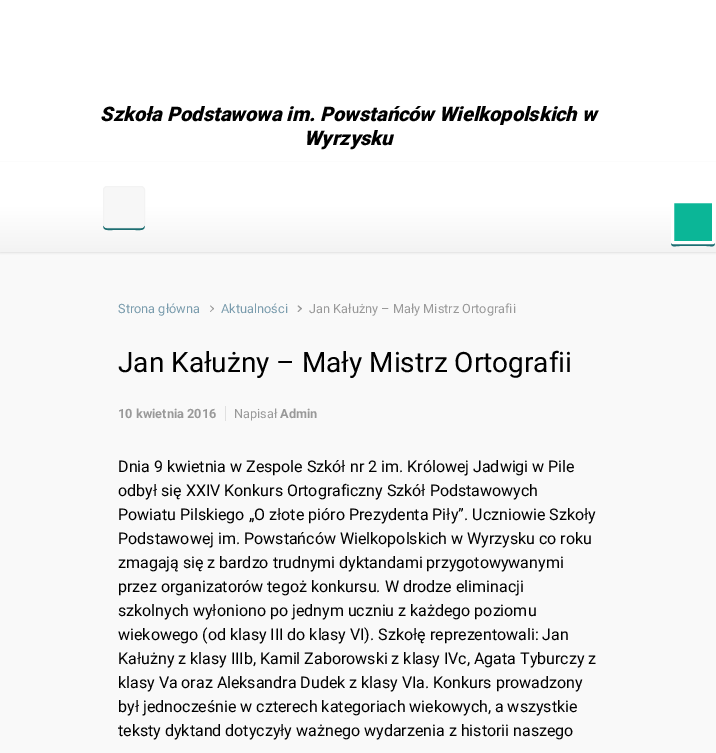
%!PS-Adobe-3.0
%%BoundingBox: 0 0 716 753
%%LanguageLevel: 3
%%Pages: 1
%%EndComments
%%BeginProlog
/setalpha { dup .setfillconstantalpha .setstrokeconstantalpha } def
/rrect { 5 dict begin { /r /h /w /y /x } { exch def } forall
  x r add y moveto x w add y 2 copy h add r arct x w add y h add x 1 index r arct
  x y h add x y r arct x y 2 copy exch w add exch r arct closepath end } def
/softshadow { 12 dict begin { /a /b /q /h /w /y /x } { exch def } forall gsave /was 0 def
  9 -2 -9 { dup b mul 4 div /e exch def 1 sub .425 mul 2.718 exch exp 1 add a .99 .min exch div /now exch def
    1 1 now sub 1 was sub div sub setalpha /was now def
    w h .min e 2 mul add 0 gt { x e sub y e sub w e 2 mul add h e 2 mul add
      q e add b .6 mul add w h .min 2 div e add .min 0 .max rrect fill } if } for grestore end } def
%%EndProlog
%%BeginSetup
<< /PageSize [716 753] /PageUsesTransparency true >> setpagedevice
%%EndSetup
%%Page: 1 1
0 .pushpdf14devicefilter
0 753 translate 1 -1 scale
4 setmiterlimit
0.976 setgray
0 0 716 753 rectfill
1 setgray
0 0 716 162 rectfill
0 setgray
0 163 716 90 0 1 0.1 softshadow
gsave newpath 0 162 moveto 716 162 lineto 716 252 lineto 0 252 lineto closepath clip newpath
<< /ShadingType 2 /ColorSpace /DeviceRGB /Coords [358 162 358 252] /Extend [true true] /Function << /FunctionType 3 /Domain [0 1] /Functions [<< /FunctionType 2 /Domain [0 1] /C0 [1 1 1] /C1 [1 1 1] /N 1 >> << /FunctionType 2 /Domain [0 1] /C0 [1 1 1] /C1 [0.953 0.953 0.953] /N 1 >>] /Bounds [0.5] /Encode [0 1 0 1] >> >> shfill grestore
0.114 0.431 0.447 setrgbcolor
newpath 103 224 moveto 103 231 106 230 113 230 curveto 135 230 lineto 142 230 145 231 145 224 curveto 145 226 143 228 141 228 curveto 107 228 lineto 105 228 103 226 103 224 curveto closepath fill
0.969 setgray
103.5 186.5 41 41 3.5 rrect gsave fill grestore
0.953 setgray
stroke
0.6 setgray
newpath 210 306 moveto 210.5 305.5 lineto 214 308.5 lineto 213.5 309.5 lineto closepath fill
newpath 210 311.5 moveto 213.5 308 lineto 214 308.5 lineto 210.5 312 lineto closepath fill
newpath 297.5 306 moveto 298.5 305.5 lineto 302 308.5 lineto 301 309.5 lineto closepath fill
newpath 297.5 311.5 moveto 301 308 lineto 302 308.5 lineto 298.5 312 lineto closepath fill
0.878 setgray
225 406 1 15 rectfill
0.114 0.431 0.447 setrgbcolor
newpath 671 242 moveto 671 248 674 246 680 246 curveto 706 246 lineto 712 246 715 248 715 242 curveto 715 243 714 244 713 244 curveto 673 244 lineto 672 244 671 243 671 242 curveto closepath fill
0.043 0.714 0.592 setrgbcolor
672.5 201.5 41 41 0.5 rrect gsave fill grestore
1 setgray
3 setlinewidth
stroke
/Roboto-BlackItalic [20 0 0 -20 0 0] selectfont
0 setgray
100 121 moveto (Szkoła Podstawowa im. Powstańców Wielkopolskich w) show
304 145 moveto (Wyrzysku) show
/Roboto-Regular [12.75 0 0 -12.75 0 0] selectfont
0.478 0.612 0.678 setrgbcolor
118 313 moveto (Strona główna) show
221 313 moveto (Aktualności) show
0.6 setgray
309 313 moveto (Jan Kałużny – Mały Mistrz Ortografii) show
/Roboto-Regular [28 0 0 -28 0 0] selectfont
0 setgray
118 372 moveto (Jan Kałużny – Mały Mistrz Ortografii) show
/Roboto-Bold [12.75 0 0 -12.75 0 0] selectfont
0.6 setgray
118 418 moveto (10 kwietnia 2016) show
/Roboto-Regular [12.75 0 0 -12.75 0 0] selectfont
234 418 moveto (Napisał) show
/Roboto-Bold [12.75 0 0 -12.75 0 0] selectfont
280 418 moveto (Admin) show
/Roboto-Regular [16 0 0 -16 0 0] selectfont
0 setgray
118 472 moveto (Dnia 9 kwietnia w Zespole Szkół nr 2 im. Królowej Jadwigi w Pile) show
118 496 moveto (odbył się XXIV Konkurs Ortograficzny Szkół Podstawowych) show
118 520 moveto (Powiatu Pilskiego „O złote pióro Prezydenta Piły”. Uczniowie Szkoły) show
118 544 moveto (Podstawowej im. Powstańców Wielkopolskich w Wyrzysku co roku) show
118 568 moveto (zmagają się z bardzo trudnymi dyktandami przygotowywanymi) show
118 592 moveto (przez organizatorów tegoż konkursu. W drodze eliminacji) show
118 616 moveto (szkolnych wyłoniono po jednym uczniu z każdego poziomu) show
118 640 moveto (wiekowego \(od klasy III do klasy VI\). Szkołę reprezentowali: Jan) show
118 664 moveto (Kałużny z klasy IIIb, Kamil Zaborowski z klasy IVc, Agata Tyburczy z) show
118 688 moveto (klasy Va oraz Aleksandra Dudek z klasy VIa. Konkurs prowadzony) show
118 712 moveto (był jednocześnie w czterech kategoriach wiekowych, a wszystkie) show
118 736 moveto (teksty dyktand dotyczyły ważnego wydarzenia z historii naszego) show
.poppdf14devicefilter showpage
%%EOF
